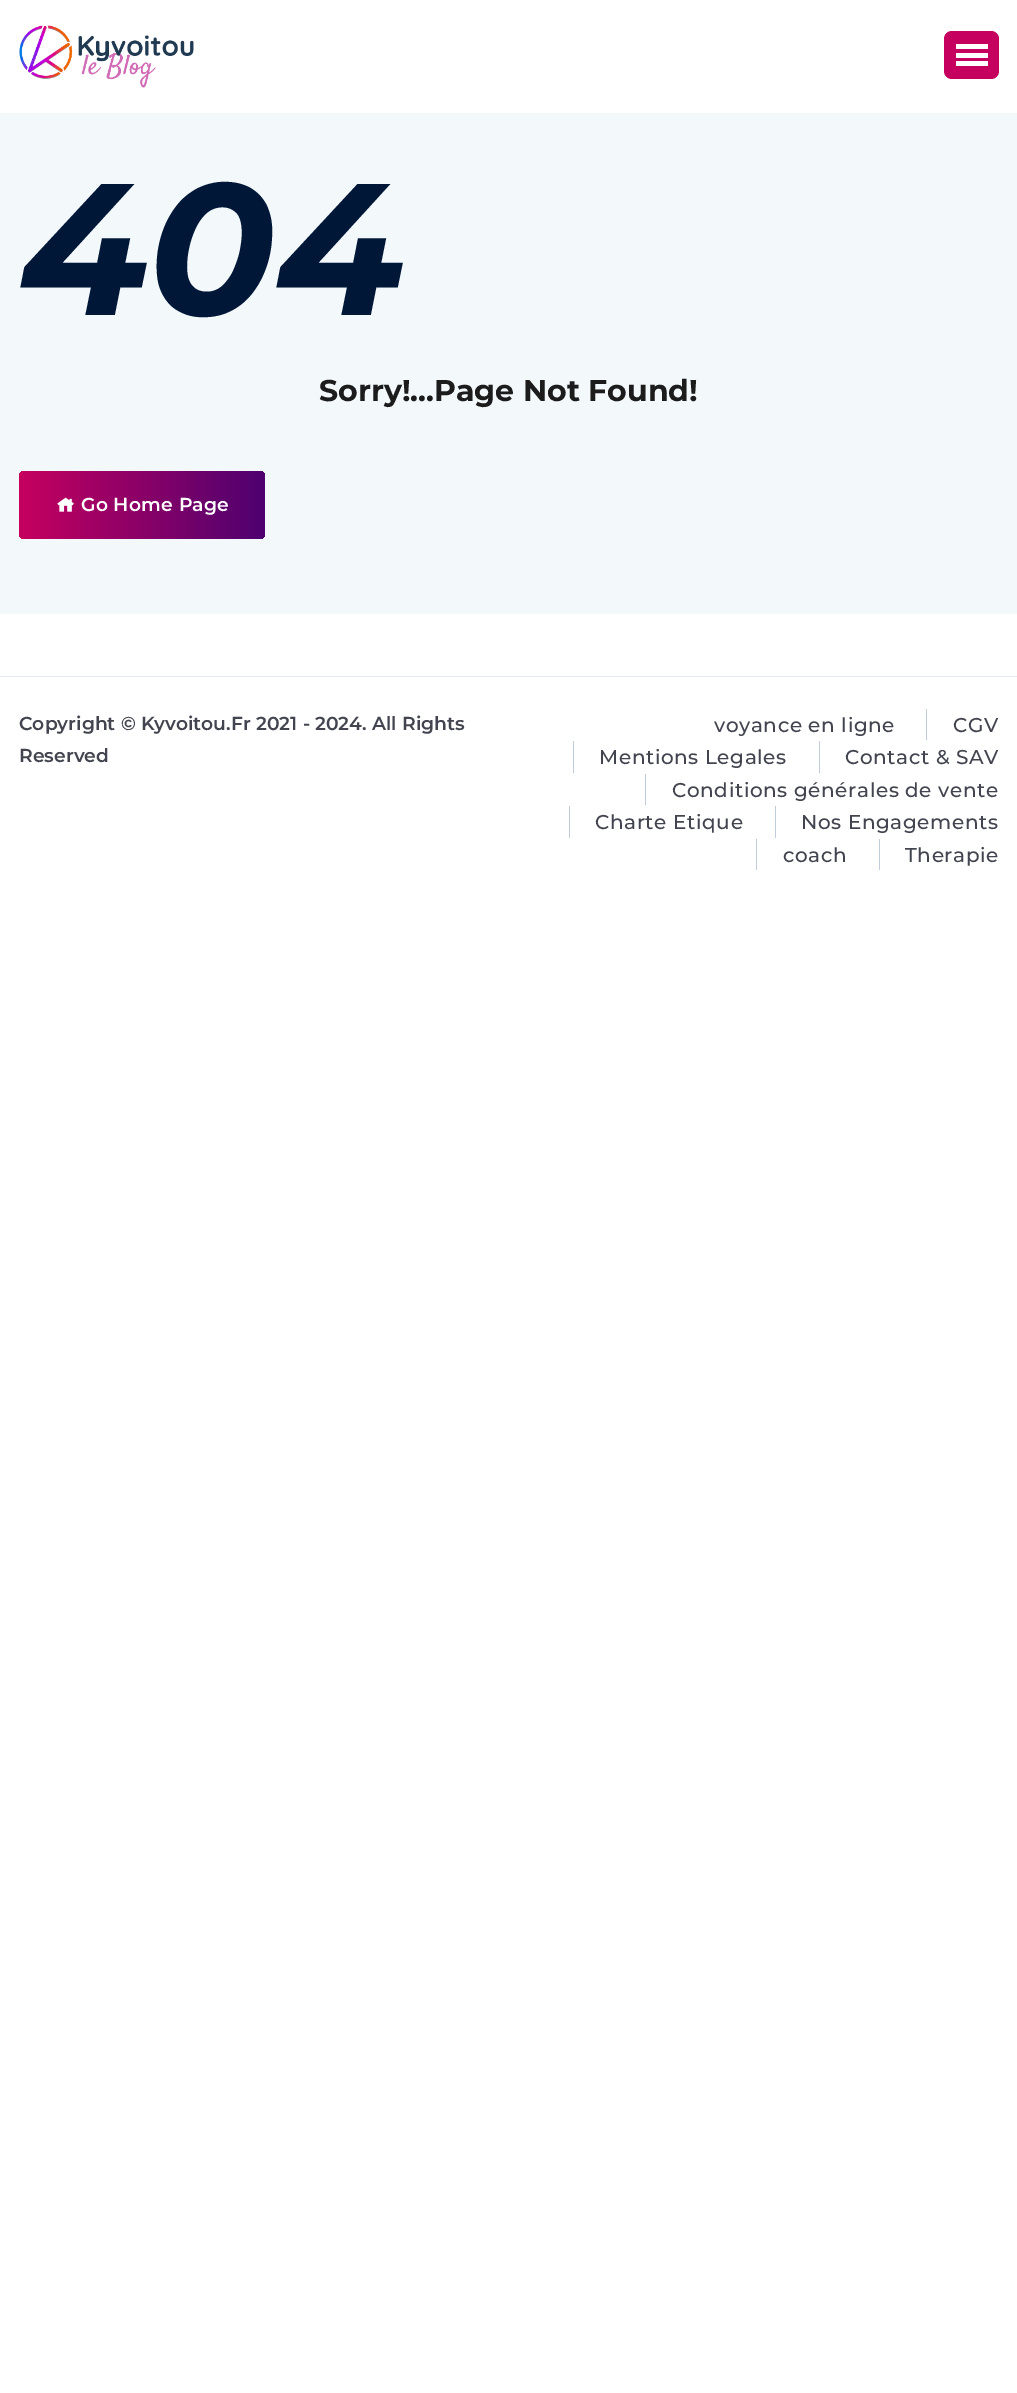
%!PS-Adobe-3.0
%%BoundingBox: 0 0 1017 2393
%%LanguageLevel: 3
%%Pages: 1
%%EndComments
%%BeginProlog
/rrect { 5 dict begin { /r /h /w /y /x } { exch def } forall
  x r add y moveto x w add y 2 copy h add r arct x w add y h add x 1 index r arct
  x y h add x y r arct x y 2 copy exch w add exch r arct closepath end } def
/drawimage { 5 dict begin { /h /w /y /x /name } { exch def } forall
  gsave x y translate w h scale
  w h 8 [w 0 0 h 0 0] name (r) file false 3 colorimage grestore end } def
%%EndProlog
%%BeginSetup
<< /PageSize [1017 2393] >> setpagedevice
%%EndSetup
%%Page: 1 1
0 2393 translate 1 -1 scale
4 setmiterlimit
1 setgray
0 0 1017 2393 rectfill
(images/1.raw) 19 25 175 63 drawimage
0.776 0 0.373 setrgbcolor
944 31 55 48 8 rrect fill
1 setgray
956 44 32 5 1 rrect fill
956 53 32 5 1 rrect fill
956 61 32 5 1 rrect fill
0.953 0.973 0.984 setrgbcolor
0 113 1017 501 rectfill
gsave 19 471 246 68 5 rrect clip newpath
<< /ShadingType 2 /ColorSpace /DeviceRGB /Coords [19 505 265 505] /Extend [true true] /Function << /FunctionType 2 /Domain [0 1] /C0 [0.776 0 0.373] /C1 [0.302 0.008 0.439] /N 1 >> >> shfill grestore
(images/2.raw) 57 497 17 15 drawimage
0.898 0.914 0.949 setrgbcolor
0 676 1017 1 rectfill
0.753 0.8 0.855 setrgbcolor
926 709 1 31 rectfill
573 741 1 32 rectfill
819 741 1 32 rectfill
645 774 1 31 rectfill
569 806 1 32 rectfill
775 806 1 32 rectfill
756 839 1 31 rectfill
879 839 1 31 rectfill
/Montserrat-BoldItalic [187.5 0 0 -187.5 0 0] selectfont
0 0.09 0.216 setrgbcolor
19 315 moveto (404) show
/Montserrat-Bold [30 0 0 -30 0 0] selectfont
0.11 setgray
319 401 moveto (Sorry!...Page Not Found!) show
/Montserrat-SemiBold [18.75 0 0 -18.75 0 0] selectfont
1 setgray
81 511 moveto 0.25 0 (Go Home Page) ashow
0.259 0.271 0.31 setrgbcolor
19 730 moveto (Copyright © Kyvoitou.Fr 2021 - 2024. All Rights) show
19 762 moveto (Reserved) show
/Montserrat-Medium [20 0 0 -20 0 0] selectfont
714 732 moveto 0.6 0 (voyance en ligne) ashow
953 732 moveto 0.6 0 (CGV) ashow
599 764 moveto 0.6 0 (Mentions Legales) ashow
845 764 moveto 0.6 0 (Contact & SAV) ashow
672 797 moveto 0.6 0 (Conditions générales de vente) ashow
595 829 moveto 0.6 0 (Charte Etique) ashow
801 829 moveto 0.6 0 (Nos Engagements) ashow
783 862 moveto 0.6 0 (coach) ashow
905 862 moveto 0.6 0 (Therapie) ashow
showpage
%%EOF
